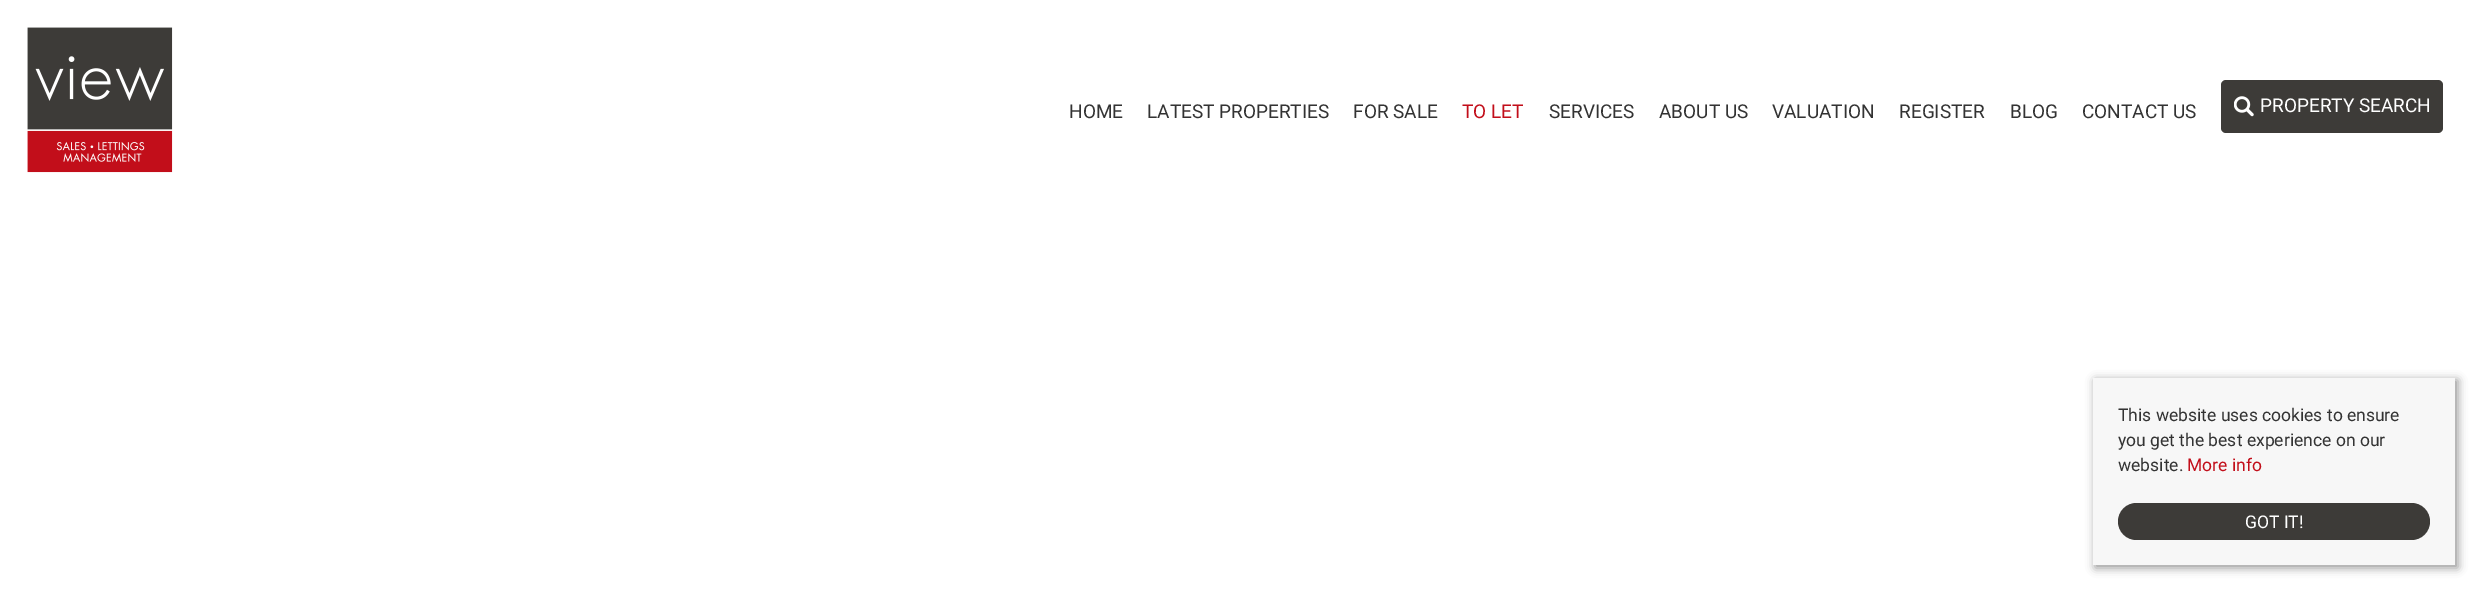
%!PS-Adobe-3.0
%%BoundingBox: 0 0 2480 590
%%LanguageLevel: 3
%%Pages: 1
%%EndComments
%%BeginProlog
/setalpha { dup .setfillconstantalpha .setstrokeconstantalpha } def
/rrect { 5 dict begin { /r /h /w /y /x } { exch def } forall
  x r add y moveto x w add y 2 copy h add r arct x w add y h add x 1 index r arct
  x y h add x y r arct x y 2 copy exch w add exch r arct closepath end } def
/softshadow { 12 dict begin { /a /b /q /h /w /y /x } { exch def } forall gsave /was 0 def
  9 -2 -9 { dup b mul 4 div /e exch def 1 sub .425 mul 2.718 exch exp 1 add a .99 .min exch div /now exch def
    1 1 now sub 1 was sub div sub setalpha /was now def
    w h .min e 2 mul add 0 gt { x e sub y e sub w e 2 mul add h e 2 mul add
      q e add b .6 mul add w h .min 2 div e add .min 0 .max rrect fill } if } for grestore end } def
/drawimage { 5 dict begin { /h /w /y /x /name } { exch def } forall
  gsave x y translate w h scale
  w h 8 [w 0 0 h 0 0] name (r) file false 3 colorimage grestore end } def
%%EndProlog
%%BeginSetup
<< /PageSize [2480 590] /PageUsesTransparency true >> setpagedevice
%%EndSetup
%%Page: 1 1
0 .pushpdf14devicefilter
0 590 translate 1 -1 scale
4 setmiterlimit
1 setgray
0 0 2480 590 rectfill
(images/1.raw) 27 27 146 146 drawimage
0.239 0.231 0.22 setrgbcolor
2221 80 222 53 5 rrect fill
(images/2.raw) 2234 96 20 21 drawimage
0 setgray
2095 380 363 188 0 4.5 0.4 softshadow
0.969 setgray
2093 378 362 187 rectfill
0.239 0.231 0.22 setrgbcolor
2118 503 312 37 18.5 rrect fill
/Roboto-Regular [19 0 0 -19 0 0] selectfont
0.2 setgray
1069 118 moveto (HOME) show
1147 118 moveto (LATEST PROPERTIES) show
1353 118 moveto (FOR SALE) show
0.761 0.055 0.102 setrgbcolor
1462 118 moveto (TO LET) show
0.2 setgray
1549 118 moveto (SERVICES) show
1659 118 moveto (ABOUT US) show
1772 118 moveto (VALUATION) show
1899 118 moveto (REGISTER) show
2010 118 moveto (BLOG) show
2082 118 moveto (CONTACT US) show
1 setgray
2260 112 moveto (PROPERTY SEARCH) show
/Roboto-Regular [17.5 0 0 -17.5 0 0] selectfont
0.2 setgray
2118 421 moveto (This website uses cookies to ensure) show
2118 446 moveto (you get the best experience on our) show
2118 471 moveto (website.) show
0.761 0.055 0.102 setrgbcolor
2187 471 moveto (More info) show
1 setgray
2245 528 moveto (GOT IT!) show
.poppdf14devicefilter showpage
%%EOF
